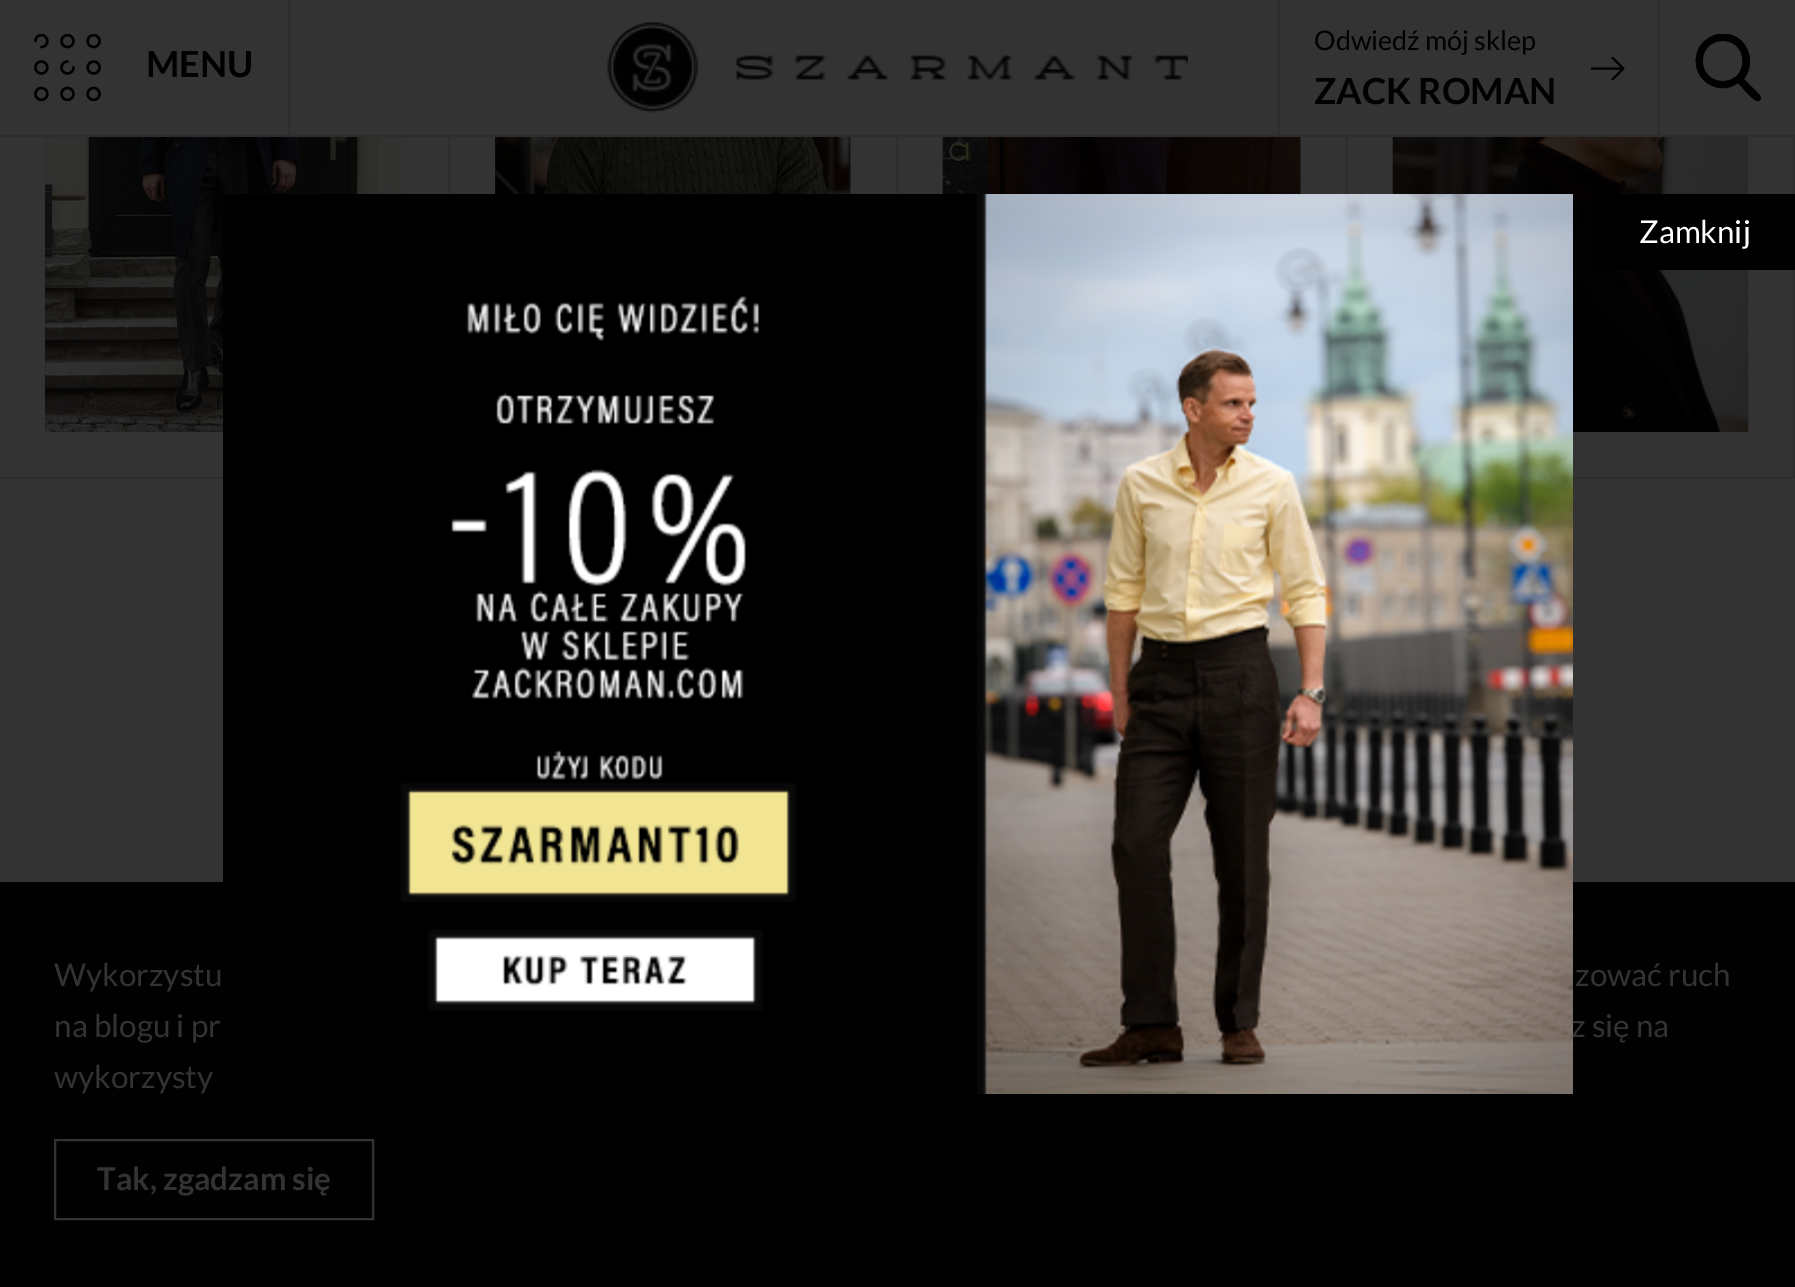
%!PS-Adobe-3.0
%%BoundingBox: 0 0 1795 1287
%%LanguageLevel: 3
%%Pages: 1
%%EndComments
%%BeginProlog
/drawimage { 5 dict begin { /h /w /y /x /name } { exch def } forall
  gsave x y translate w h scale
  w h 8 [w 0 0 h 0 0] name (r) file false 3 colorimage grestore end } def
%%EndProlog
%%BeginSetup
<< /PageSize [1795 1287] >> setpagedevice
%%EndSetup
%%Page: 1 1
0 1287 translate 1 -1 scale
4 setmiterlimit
0.2 setgray
0 0 1795 1287 rectfill
0.176 setgray
0 135 1795 2 rectfill
288 0 2 135 rectfill
(images/1.raw) 34 34 67 67 drawimage
(images/2.raw) 607 22 581 91 drawimage
1278 0 2 137 rectfill
(images/3.raw) 1591 56 34 25 drawimage
1658 0 2 135 rectfill
gsave
1694 34 68 67 rectclip
0.004 setgray
newpath 1760 95 moveto 1744 79 lineto 1754 66 1751 47 1738 38 curveto 1730 33 1720 32 1712 36 curveto 1706 39 1700 44 1698 50 curveto 1687 76 1717 99 1738 83 curveto 1746 92 lineto 1747 92 1759 108 1761 98 curveto 1761 97 1760 96 1760 95 curveto closepath 1723 41 moveto 1749 41 1749 81 1723 81 curveto 1696 81 1696 41 1723 41 curveto closepath fill
grestore
0 477 1795 2 rectfill
448 137 2 57 rectfill
(images/4.raw) 45 137 358 295 drawimage
896 137 2 57 rectfill
(images/5.raw) 495 137 356 57 drawimage
1346 137 2 57 rectfill
(images/6.raw) 942 137 359 57 drawimage
1793 137 2 340 rectfill
(images/7.raw) 1392 137 357 295 drawimage
0 setgray
1593 194 202 76 rectfill
0.004 setgray
0 882 1795 405 rectfill
0.2 setgray
2 setlinewidth
55 1140 318 79 rectstroke
/Lato-Bold [36 0 0 -36 0 0] selectfont
0.004 setgray
146 77 moveto (MENU) show
/Lato-Regular [27 0 0 -27 0 0] selectfont
1314 50 moveto (Odwiedź mój sklep) show
/Lato-Bold [36 0 0 -36 0 0] selectfont
1314 104 moveto (ZACK ROMAN) show
/Lato-Regular [31.5 0 0 -31.5 0 0] selectfont
1 setgray
1639 243 moveto (Zamknij) show
0.2 setgray
54 986 moveto (Wykorzystu) show
1575 986 moveto (zować ruch) show
54 1037 moveto (na blogu i pr) show
1571 1037 moveto (z się na) show
(images/8.raw) 223 194 1350 900 drawimage
54 1088 moveto (wykorzysty) show
/Lato-Bold [31.5 0 0 -31.5 0 0] selectfont
97 1190 moveto (Tak, zgadzam się) show
showpage
%%EOF
